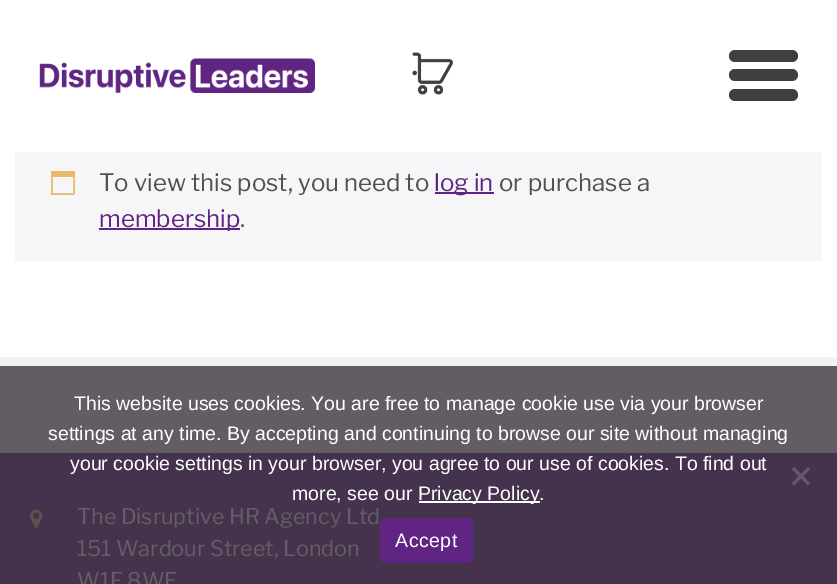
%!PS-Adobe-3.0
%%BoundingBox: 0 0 837 584
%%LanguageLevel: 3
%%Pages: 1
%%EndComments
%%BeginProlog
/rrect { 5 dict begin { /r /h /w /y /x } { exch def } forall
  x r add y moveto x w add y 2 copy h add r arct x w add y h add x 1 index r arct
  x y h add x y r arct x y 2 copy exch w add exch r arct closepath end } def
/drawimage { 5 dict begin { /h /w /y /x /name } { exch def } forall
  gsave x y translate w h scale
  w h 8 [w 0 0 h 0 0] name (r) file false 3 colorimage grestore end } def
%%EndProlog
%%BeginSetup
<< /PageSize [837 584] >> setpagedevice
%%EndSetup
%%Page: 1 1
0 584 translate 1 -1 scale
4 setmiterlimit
1 setgray
0 0 837 584 rectfill
(images/1.raw) 39 58 276 35 drawimage
0.251 0.251 0.255 setrgbcolor
729 50 69 12 6 rrect fill
729 69 69 12 6 rrect fill
729 89 69 12 6 rrect fill
0.965 0.961 0.973 setrgbcolor
15 152 807 109 rectfill
(images/3.raw) 51 171 24 24 drawimage
0.376 0.141 0.51 setrgbcolor
435 192 59 2 rectfill
99 228 141 2 rectfill
0.949 0.949 0.957 setrgbcolor
0 357 837 9 rectfill
0.384 0.361 0.388 setrgbcolor
0 366 837 87 rectfill
0.271 0.196 0.298 setrgbcolor
0 453 837 131 rectfill
(images/4.raw) 30 509 13 19 drawimage
1 setgray
419 501 121 2 rectfill
0.384 0.349 0.4 setrgbcolor
newpath 808 467 moveto 810 469.5 lineto 794 485.5 lineto 792 483 lineto closepath fill
newpath 792 469.5 moveto 794 467 lineto 810 483 lineto 808 485.5 lineto closepath fill
0.376 0.141 0.51 setrgbcolor
380 518 93 45 5 rrect fill
/LibreFranklin-Regular [24 0 0 -24 0 0] selectfont
0.251 0.251 0.255 setrgbcolor
411 82 moveto (•) show
(images/2.raw) 412 52 41 43 drawimage
0.318 setgray
99 191 moveto (To view this post, you need to) show
0.376 0.141 0.51 setrgbcolor
434 191 moveto (log in) show
0.318 setgray
499 191 moveto (or purchase a) show
0.376 0.141 0.51 setrgbcolor
99 227 moveto (membership) show
0.318 setgray
240 227 moveto (.) show
/LibreFranklin-Regular [21.6 0 0 -21.6 0 0] selectfont
0.396 0.369 0.396 setrgbcolor
77 524 moveto (The Disruptive HR Agency Ltd) show
77 556 moveto (151 Wardour Street, London) show
77 588 moveto (W1F 8WE) show
/LiberationSans-Regular [19.5 0 0 -19.5 0 0] selectfont
1 setgray
74 410 moveto (This website uses cookies. You are free to manage cookie use via your browser) show
48 440 moveto (settings at any time. By accepting and continuing to browse our site without managing) show
70 470 moveto (your cookie settings in your browser, you agree to our use of cookies. To find out) show
292 500 moveto (more, see our) show
418 500 moveto (Privacy Policy.) show
395 547 moveto 0.5 0 (Accept) ashow
showpage
%%EOF
